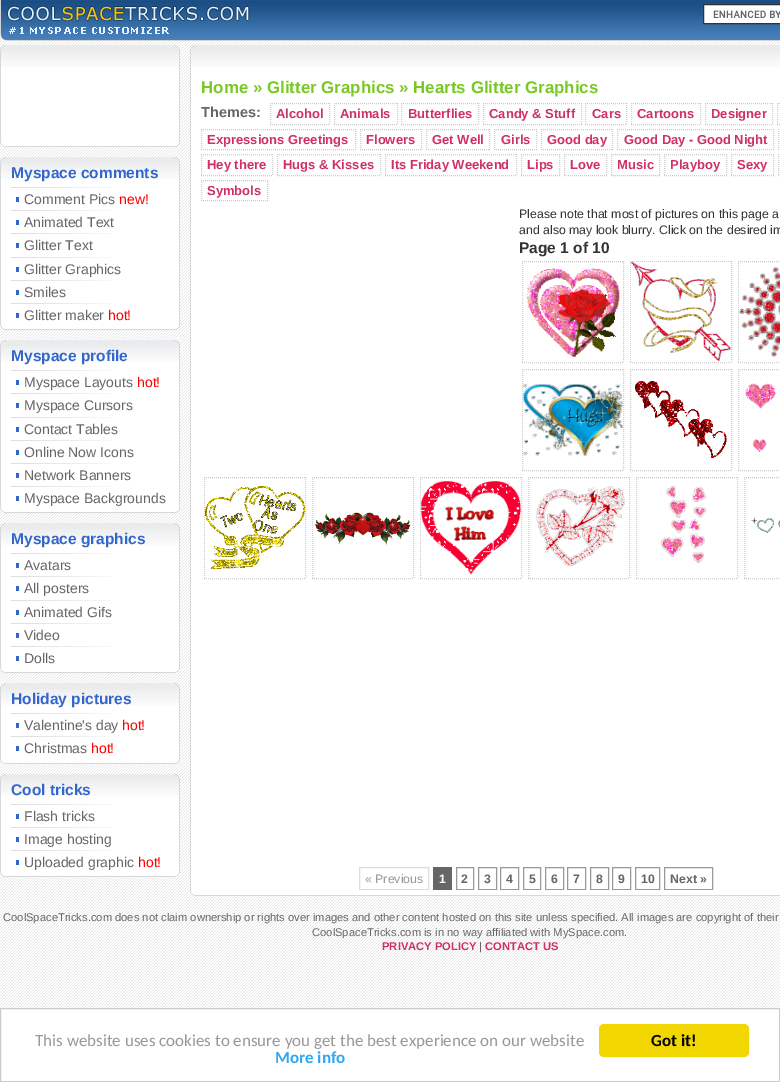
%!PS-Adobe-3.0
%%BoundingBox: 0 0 780 1082
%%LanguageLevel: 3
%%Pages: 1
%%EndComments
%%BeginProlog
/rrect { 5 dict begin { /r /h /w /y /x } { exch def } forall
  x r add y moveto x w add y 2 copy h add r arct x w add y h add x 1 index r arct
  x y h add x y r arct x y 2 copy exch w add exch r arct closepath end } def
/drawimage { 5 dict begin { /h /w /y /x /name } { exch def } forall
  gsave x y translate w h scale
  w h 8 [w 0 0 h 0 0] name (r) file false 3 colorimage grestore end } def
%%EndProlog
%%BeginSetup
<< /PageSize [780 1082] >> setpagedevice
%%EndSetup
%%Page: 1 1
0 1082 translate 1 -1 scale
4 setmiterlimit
1 setgray
0 0 780 1082 rectfill
(images/1.raw) 0 38 780 970 drawimage
(images/2.raw) 0 0 780 41 drawimage
704 5 76 18 rectfill
(images/3.raw) 713 10 67 8 drawimage
0.2 setgray
703.5 4.5 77 19 rectstroke
(images/4.raw) 0 45 6 6 drawimage
0.918 0.922 0.925 setrgbcolor
6 45 168 6 rectfill
(images/5.raw) 174 45 6 6 drawimage
1 setgray
1 67 178 74 rectfill
0.843 0.847 0.859 setrgbcolor
0 51 1 90 rectfill
(images/6.raw) 1 51 5 16 drawimage
(images/7.raw) 6 51 168 16 drawimage
179 51 1 90 rectfill
(images/6.raw) 174 51 5 16 drawimage
(images/8.raw) 0 141 6 6 drawimage
1 setgray
6 141 168 5 rectfill
0.843 0.847 0.859 setrgbcolor
6 146 168 1 rectfill
(images/9.raw) 174 141 6 6 drawimage
(images/10.raw) 0 157 6 6 drawimage
0.918 0.922 0.925 setrgbcolor
6 157 168 6 rectfill
(images/11.raw) 174 157 6 6 drawimage
1 setgray
1 179 178 145 rectfill
0.843 0.847 0.859 setrgbcolor
0 163 1 161 rectfill
(images/6.raw) 1 163 5 16 drawimage
(images/7.raw) 6 163 168 16 drawimage
(images/12.raw) 11 187 100 1 drawimage
0.2 0.4 0.8 setrgbcolor
16 197 3 5 rectfill
(images/12.raw) 11 210 100 1 drawimage
16 220 3 5 rectfill
(images/12.raw) 11 233 100 1 drawimage
16 243 3 5 rectfill
(images/12.raw) 11 257 100 1 drawimage
16 267 3 5 rectfill
(images/12.raw) 11 280 100 1 drawimage
16 290 3 5 rectfill
(images/12.raw) 11 303 100 1 drawimage
16 313 3 5 rectfill
0.843 0.847 0.859 setrgbcolor
179 163 1 161 rectfill
(images/6.raw) 174 163 5 16 drawimage
(images/8.raw) 0 324 6 6 drawimage
1 setgray
6 324 168 5 rectfill
0.843 0.847 0.859 setrgbcolor
6 329 168 1 rectfill
(images/9.raw) 174 324 6 6 drawimage
(images/10.raw) 0 340 6 6 drawimage
0.918 0.922 0.925 setrgbcolor
6 340 168 6 rectfill
(images/11.raw) 174 340 6 6 drawimage
1 setgray
1 362 178 145 rectfill
0.843 0.847 0.859 setrgbcolor
0 346 1 161 rectfill
(images/6.raw) 1 346 5 16 drawimage
(images/7.raw) 6 346 168 16 drawimage
(images/12.raw) 11 370 100 1 drawimage
0.2 0.4 0.8 setrgbcolor
16 380 3 5 rectfill
(images/12.raw) 11 393 100 1 drawimage
16 403 3 5 rectfill
(images/12.raw) 11 417 100 1 drawimage
16 427 3 5 rectfill
(images/12.raw) 11 440 100 1 drawimage
16 450 3 5 rectfill
(images/12.raw) 11 463 100 1 drawimage
16 473 3 5 rectfill
(images/12.raw) 11 486 100 1 drawimage
16 496 3 5 rectfill
0.843 0.847 0.859 setrgbcolor
179 346 1 161 rectfill
(images/6.raw) 174 346 5 16 drawimage
(images/8.raw) 0 507 6 6 drawimage
1 setgray
6 507 168 5 rectfill
0.843 0.847 0.859 setrgbcolor
6 512 168 1 rectfill
(images/9.raw) 174 507 6 6 drawimage
(images/10.raw) 0 523 6 6 drawimage
0.918 0.922 0.925 setrgbcolor
6 523 168 6 rectfill
(images/11.raw) 174 523 6 6 drawimage
1 setgray
1 545 178 122 rectfill
0.843 0.847 0.859 setrgbcolor
0 529 1 138 rectfill
(images/6.raw) 1 529 5 16 drawimage
(images/7.raw) 6 529 168 16 drawimage
(images/12.raw) 11 553 100 1 drawimage
0.2 0.4 0.8 setrgbcolor
16 563 3 5 rectfill
(images/12.raw) 11 576 100 1 drawimage
16 586 3 5 rectfill
(images/12.raw) 11 600 100 1 drawimage
16 610 3 5 rectfill
(images/12.raw) 11 623 100 1 drawimage
16 633 3 5 rectfill
(images/12.raw) 11 646 100 1 drawimage
16 656 3 5 rectfill
0.843 0.847 0.859 setrgbcolor
179 529 1 138 rectfill
(images/6.raw) 174 529 5 16 drawimage
(images/13.raw) 0 667 6 6 drawimage
1 setgray
6 667 168 5 rectfill
0.843 0.847 0.859 setrgbcolor
6 672 168 1 rectfill
(images/14.raw) 174 667 6 6 drawimage
(images/15.raw) 0 683 6 6 drawimage
0.918 0.922 0.925 setrgbcolor
6 683 168 6 rectfill
(images/16.raw) 174 683 6 6 drawimage
1 setgray
1 705 178 53 rectfill
0.843 0.847 0.859 setrgbcolor
0 689 1 69 rectfill
(images/6.raw) 1 689 5 16 drawimage
(images/7.raw) 6 689 168 16 drawimage
(images/12.raw) 11 713 100 1 drawimage
0.2 0.4 0.8 setrgbcolor
16 723 3 5 rectfill
(images/12.raw) 11 736 100 1 drawimage
16 746 3 5 rectfill
0.843 0.847 0.859 setrgbcolor
179 689 1 69 rectfill
(images/6.raw) 174 689 5 16 drawimage
(images/17.raw) 0 758 6 6 drawimage
1 setgray
6 758 168 5 rectfill
0.843 0.847 0.859 setrgbcolor
6 763 168 1 rectfill
(images/18.raw) 174 758 6 6 drawimage
(images/4.raw) 0 774 6 6 drawimage
0.918 0.922 0.925 setrgbcolor
6 774 168 6 rectfill
(images/5.raw) 174 774 6 6 drawimage
1 setgray
1 796 178 75 rectfill
0.843 0.847 0.859 setrgbcolor
0 780 1 91 rectfill
(images/6.raw) 1 780 5 16 drawimage
(images/7.raw) 6 780 168 16 drawimage
(images/12.raw) 11 804 100 1 drawimage
0.2 0.4 0.8 setrgbcolor
16 814 3 5 rectfill
(images/12.raw) 11 827 100 1 drawimage
16 837 3 5 rectfill
(images/12.raw) 11 850 100 1 drawimage
16 860 3 5 rectfill
0.843 0.847 0.859 setrgbcolor
179 780 1 91 rectfill
(images/6.raw) 174 780 5 16 drawimage
(images/13.raw) 0 871 6 6 drawimage
1 setgray
6 871 168 5 rectfill
0.843 0.847 0.859 setrgbcolor
6 876 168 1 rectfill
(images/14.raw) 174 871 6 6 drawimage
(images/10.raw) 190 45 6 6 drawimage
0.918 0.922 0.925 setrgbcolor
196 45 584 6 rectfill
1 setgray
191 67 589 823 rectfill
0.843 0.847 0.859 setrgbcolor
190 51 1 839 rectfill
(images/6.raw) 191 51 5 16 drawimage
(images/19.raw) 196 51 584 16 drawimage
0.8 setgray
[1 1] 0 setdash
newpath 270 103.5 moveto 330 103.5 lineto 329.5 103 moveto 329.5 125 lineto 270 124.5 moveto 330 124.5 lineto 270.5 103 moveto 270.5 125 lineto stroke
newpath 334 103.5 moveto 398 103.5 lineto stroke
newpath 397.5 103 moveto 397.5 125 lineto stroke
newpath 334 124.5 moveto 398 124.5 lineto 334.5 103 moveto 334.5 125 lineto stroke
newpath 401 103.5 moveto 479 103.5 lineto stroke
newpath 478.5 103 moveto 478.5 125 lineto stroke
newpath 401 124.5 moveto 479 124.5 lineto stroke
newpath 401.5 103 moveto 401.5 125 lineto stroke
newpath 483 103.5 moveto 582 103.5 lineto stroke
newpath 581.5 103 moveto 581.5 125 lineto stroke
newpath 483 124.5 moveto 582 124.5 lineto stroke
newpath 483.5 103 moveto 483.5 125 lineto stroke
newpath 585 103.5 moveto 627 103.5 lineto 626.5 103 moveto 626.5 125 lineto 585 124.5 moveto 627 124.5 lineto 585.5 103 moveto 585.5 125 lineto stroke
newpath 631 103.5 moveto 701 103.5 lineto stroke
newpath 700.5 103 moveto 700.5 125 lineto stroke
newpath 631 124.5 moveto 701 124.5 lineto stroke
newpath 631.5 103 moveto 631.5 125 lineto stroke
newpath 705 103.5 moveto 773 103.5 lineto stroke
newpath 772.5 103 moveto 772.5 125 lineto stroke
newpath 705 124.5 moveto 773 124.5 lineto stroke
newpath 705.5 103 moveto 705.5 125 lineto stroke
newpath 777 103.5 moveto 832 103.5 lineto 777 124.5 moveto 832 124.5 lineto 777.5 103 moveto 777.5 125 lineto stroke
newpath 201 129.5 moveto 356 129.5 lineto stroke
newpath 355.5 129 moveto 355.5 150 lineto stroke
newpath 201 149.5 moveto 356 149.5 lineto stroke
newpath 201.5 129 moveto 201.5 150 lineto stroke
newpath 360 129.5 moveto 422 129.5 lineto 421.5 129 moveto 421.5 150 lineto 360 149.5 moveto 422 149.5 lineto 360.5 129 moveto 360.5 150 lineto stroke
newpath 426 129.5 moveto 490 129.5 lineto stroke
newpath 489.5 129 moveto 489.5 150 lineto stroke
newpath 426 149.5 moveto 490 149.5 lineto 426.5 129 moveto 426.5 150 lineto stroke
newpath 494 129.5 moveto 537 129.5 lineto 536.5 129 moveto 536.5 150 lineto 494 149.5 moveto 537 149.5 lineto 494.5 129 moveto 494.5 150 lineto stroke
newpath 541 129.5 moveto 613 129.5 lineto stroke
newpath 612.5 129 moveto 612.5 150 lineto stroke
newpath 541 149.5 moveto 613 149.5 lineto stroke
newpath 541.5 129 moveto 541.5 150 lineto stroke
newpath 617 129.5 moveto 774 129.5 lineto stroke
newpath 773.5 129 moveto 773.5 150 lineto stroke
newpath 617 149.5 moveto 774 149.5 lineto stroke
newpath 617.5 129 moveto 617.5 150 lineto stroke
newpath 778.5 129 moveto 778.5 150 lineto stroke
newpath 201 154.5 moveto 273 154.5 lineto stroke
newpath 272.5 154 moveto 272.5 176 lineto stroke
newpath 201 175.5 moveto 273 175.5 lineto stroke
newpath 201.5 154 moveto 201.5 176 lineto stroke
newpath 277 154.5 moveto 381 154.5 lineto stroke
newpath 380.5 154 moveto 380.5 176 lineto stroke
newpath 277 175.5 moveto 381 175.5 lineto stroke
newpath 277.5 154 moveto 277.5 176 lineto stroke
newpath 385 154.5 moveto 517 154.5 lineto stroke
newpath 516.5 154 moveto 516.5 176 lineto stroke
newpath 385 175.5 moveto 517 175.5 lineto stroke
newpath 385.5 154 moveto 385.5 176 lineto stroke
newpath 521 154.5 moveto 560 154.5 lineto 559.5 154 moveto 559.5 176 lineto 521 175.5 moveto 560 175.5 lineto 521.5 154 moveto 521.5 176 lineto stroke
newpath 564 154.5 moveto 607 154.5 lineto 606.5 154 moveto 606.5 176 lineto 564 175.5 moveto 607 175.5 lineto 564.5 154 moveto 564.5 176 lineto stroke
newpath 611 154.5 moveto 660 154.5 lineto 659.5 154 moveto 659.5 176 lineto 611 175.5 moveto 660 175.5 lineto 611.5 154 moveto 611.5 176 lineto stroke
newpath 664 154.5 moveto 727 154.5 lineto 726.5 154 moveto 726.5 176 lineto 664 175.5 moveto 727 175.5 lineto 664.5 154 moveto 664.5 176 lineto stroke
newpath 731 154.5 moveto 774 154.5 lineto 773.5 154 moveto 773.5 176 lineto 731 175.5 moveto 774 175.5 lineto 731.5 154 moveto 731.5 176 lineto stroke
newpath 778 175.5 moveto 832 175.5 lineto 778.5 154 moveto 778.5 176 lineto stroke
newpath 201 180.5 moveto 268 180.5 lineto stroke
newpath 267.5 180 moveto 267.5 201 lineto stroke
newpath 201 200.5 moveto 268 200.5 lineto stroke
newpath 201.5 180 moveto 201.5 201 lineto stroke
newpath 522 261.5 moveto 624 261.5 lineto stroke
newpath 623.5 261 moveto 623.5 363 lineto stroke
newpath 522 362.5 moveto 624 362.5 lineto stroke
newpath 522.5 261 moveto 522.5 363 lineto stroke
(images/20.raw) 526 268 94 89 drawimage
newpath 630 261.5 moveto 732 261.5 lineto stroke
newpath 731.5 261 moveto 731.5 363 lineto stroke
newpath 630 362.5 moveto 732 362.5 lineto stroke
newpath 630.5 261 moveto 630.5 363 lineto stroke
(images/21.raw) 631 262 100 99 drawimage
newpath 738 261.5 moveto 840 261.5 lineto stroke
newpath 738 362.5 moveto 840 362.5 lineto stroke
newpath 738.5 261 moveto 738.5 363 lineto stroke
(images/22.raw) 739 267 41 91 drawimage
newpath 522 369.5 moveto 624 369.5 lineto stroke
newpath 623.5 369 moveto 623.5 471 lineto stroke
newpath 522 470.5 moveto 624 470.5 lineto stroke
newpath 522.5 369 moveto 522.5 471 lineto stroke
(images/23.raw) 523 384 100 72 drawimage
newpath 630 369.5 moveto 732 369.5 lineto stroke
newpath 731.5 369 moveto 731.5 471 lineto stroke
newpath 630 470.5 moveto 732 470.5 lineto stroke
newpath 630.5 369 moveto 630.5 471 lineto stroke
(images/24.raw) 635 381 92 77 drawimage
newpath 738 369.5 moveto 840 369.5 lineto stroke
newpath 738 470.5 moveto 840 470.5 lineto stroke
newpath 738.5 369 moveto 738.5 471 lineto stroke
(images/25.raw) 745 383 31 69 drawimage
newpath 204 477.5 moveto 306 477.5 lineto stroke
newpath 305.5 477 moveto 305.5 579 lineto stroke
newpath 204 578.5 moveto 306 578.5 lineto stroke
newpath 204.5 477 moveto 204.5 579 lineto stroke
(images/26.raw) 205 486 100 83 drawimage
newpath 312 477.5 moveto 414 477.5 lineto stroke
newpath 413.5 477 moveto 413.5 579 lineto stroke
newpath 312 578.5 moveto 414 578.5 lineto stroke
newpath 312.5 477 moveto 312.5 579 lineto stroke
(images/27.raw) 315 512 96 33 drawimage
newpath 420 477.5 moveto 522 477.5 lineto stroke
newpath 521.5 477 moveto 521.5 579 lineto stroke
newpath 420 578.5 moveto 522 578.5 lineto stroke
newpath 420.5 477 moveto 420.5 579 lineto stroke
(images/28.raw) 421 481 100 94 drawimage
newpath 528 477.5 moveto 630 477.5 lineto stroke
newpath 629.5 477 moveto 629.5 579 lineto stroke
newpath 528 578.5 moveto 630 578.5 lineto stroke
newpath 528.5 477 moveto 528.5 579 lineto stroke
(images/29.raw) 536 486 89 80 drawimage
newpath 636 477.5 moveto 738 477.5 lineto stroke
newpath 737.5 477 moveto 737.5 579 lineto stroke
newpath 636 578.5 moveto 738 578.5 lineto stroke
newpath 636.5 477 moveto 636.5 579 lineto stroke
(images/30.raw) 660 486 46 77 drawimage
newpath 744 477.5 moveto 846 477.5 lineto stroke
newpath 744 578.5 moveto 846 578.5 lineto stroke
newpath 744.5 477 moveto 744.5 579 lineto stroke
(images/31.raw) 751 518 29 16 drawimage
0.867 setgray
[] 0 setdash
359.5 867.5 69 22 rectstroke
0.4 setgray
433 867 19 23 rectfill
0.6 setgray
456.5 867.5 17 22 rectstroke
478.5 867.5 18 22 rectstroke
500.5 867.5 18 22 rectstroke
523.5 867.5 17 22 rectstroke
545.5 867.5 18 22 rectstroke
567.5 867.5 18 22 rectstroke
590.5 867.5 18 22 rectstroke
612.5 867.5 18 22 rectstroke
635.5 867.5 24 22 rectstroke
664.5 867.5 48 22 rectstroke
(images/8.raw) 190 890 6 6 drawimage
1 setgray
196 890 584 5 rectfill
0.843 0.847 0.859 setrgbcolor
196 895 584 1 rectfill
0.8 setgray
0.5 1008.5 779 73 rectstroke
0.945 0.839 0 setrgbcolor
599 1024 150 33 5 rrect fill
/LiberationSans-Bold [15.5 0 0 -15.5 0 0] selectfont
0.2 0.4 0.8 setrgbcolor
11 178 moveto (Myspace comments) show
/LiberationSans-Regular [14 0 0 -14 0 0] selectfont
0.4 setgray
24 204 moveto (Comment Pics) show
1 0 0 setrgbcolor
119 204 moveto (new!) show
0.4 setgray
24 227 moveto (Animated Text) show
24 250 moveto (Glitter Text) show
24 274 moveto (Glitter Graphics) show
24 297 moveto (Smiles) show
24 320 moveto (Glitter maker) show
1 0 0 setrgbcolor
108 320 moveto (hot!) show
/LiberationSans-Bold [15.5 0 0 -15.5 0 0] selectfont
0.2 0.4 0.8 setrgbcolor
11 361 moveto (Myspace profile) show
/LiberationSans-Regular [14 0 0 -14 0 0] selectfont
0.4 setgray
24 387 moveto (Myspace Layouts) show
1 0 0 setrgbcolor
137 387 moveto (hot!) show
0.4 setgray
24 410 moveto (Myspace Cursors) show
24 434 moveto (Contact Tables) show
24 457 moveto (Online Now Icons) show
24 480 moveto (Network Banners) show
24 503 moveto (Myspace Backgrounds) show
/LiberationSans-Bold [15.5 0 0 -15.5 0 0] selectfont
0.2 0.4 0.8 setrgbcolor
11 544 moveto (Myspace graphics) show
/LiberationSans-Regular [14 0 0 -14 0 0] selectfont
0.4 setgray
24 570 moveto (Avatars) show
24 593 moveto (All posters) show
24 617 moveto (Animated Gifs) show
24 640 moveto (Video) show
24 663 moveto (Dolls) show
/LiberationSans-Bold [15.5 0 0 -15.5 0 0] selectfont
0.2 0.4 0.8 setrgbcolor
11 704 moveto (Holiday pictures) show
/LiberationSans-Regular [14 0 0 -14 0 0] selectfont
0.4 setgray
24 730 moveto (Valentine's day) show
1 0 0 setrgbcolor
122 730 moveto (hot!) show
0.4 setgray
24 753 moveto (Christmas) show
1 0 0 setrgbcolor
91 753 moveto (hot!) show
/LiberationSans-Bold [15.5 0 0 -15.5 0 0] selectfont
0.2 0.4 0.8 setrgbcolor
11 795 moveto (Cool tricks) show
/LiberationSans-Regular [14 0 0 -14 0 0] selectfont
0.4 setgray
24 821 moveto (Flash tricks) show
24 844 moveto (Image hosting) show
24 867 moveto (Uploaded graphic) show
1 0 0 setrgbcolor
138 867 moveto (hot!) show
/LiberationSans-Bold [16.9 0 0 -16.9 0 0] selectfont
0.478 0.784 0.145 setrgbcolor
201 93 moveto (Home » Glitter Graphics » Hearts Glitter Graphics) show
/LiberationSans-Bold [14.5 0 0 -14.5 0 0] selectfont
0.4 setgray
201 117 moveto (Themes:) show
/LiberationSans-Bold [13 0 0 -13 0 0] selectfont
0.812 0.192 0.396 setrgbcolor
276 118 moveto (Alcohol) show
340 118 moveto (Animals) show
408 118 moveto (Butterflies) show
489 118 moveto (Candy & Stuff) show
592 118 moveto (Cars) show
637 118 moveto (Cartoons) show
711 118 moveto (Designer) show
207 144 moveto (Expressions Greetings) show
366 144 moveto (Flowers) show
432 144 moveto (Get Well) show
501 144 moveto (Girls) show
547 144 moveto (Good day) show
624 144 moveto (Good Day - Good Night) show
207 169 moveto (Hey there) show
283 169 moveto (Hugs & Kisses) show
391 169 moveto (Its Friday Weekend) show
527 169 moveto (Lips) show
570 169 moveto (Love) show
617 169 moveto (Music) show
670 169 moveto (Playboy) show
737 169 moveto (Sexy) show
207 195 moveto (Symbols) show
/LiberationSans-Regular [12.3 0 0 -12.3 0 0] selectfont
0.2 setgray
519 218 moveto (Please note that most of pictures on this page a) show
519 234 moveto (and also may look blurry. Click on the desired im) show
/LiberationSans-Bold [15.5 0 0 -15.5 0 0] selectfont
519 253 moveto (Page 1 of 10) show
/LiberationSans-Regular [12.3 0 0 -12.3 0 0] selectfont
0.6 setgray
365 883 moveto (« Previous) show
/LiberationSans-Bold [12.3 0 0 -12.3 0 0] selectfont
1 setgray
439 883 moveto (1) show
0.4 setgray
461 883 moveto (2) show
484 883 moveto (3) show
506 883 moveto (4) show
529 883 moveto (5) show
551 883 moveto (6) show
573 883 moveto (7) show
596 883 moveto (8) show
618 883 moveto (9) show
641 883 moveto (10) show
670 883 moveto (Next ») show
/LiberationSans-Regular [11.2 0 0 -11.2 0 0] selectfont
3 921 moveto (CoolSpaceTricks.com does not claim ownership or rights over images and other content hosted on this site unless specified. All images are copyright of their) show
312 936 moveto (CoolSpaceTricks.com is in no way affiliated with MySpace.com.) show
/LiberationSans-Bold [11.2 0 0 -11.2 0 0] selectfont
0.812 0.192 0.396 setrgbcolor
382 950 moveto (PRIVACY POLICY) show
/LiberationSans-Regular [11.2 0 0 -11.2 0 0] selectfont
0.4 setgray
479 950 moveto (|) show
/LiberationSans-Bold [11.2 0 0 -11.2 0 0] selectfont
0.812 0.192 0.396 setrgbcolor
485 950 moveto (CONTACT US) show
/Carlito-Regular [17 0 0 -17 0 0] selectfont
0.6 setgray
35 1046 moveto (This website uses cookies to ensure you get the best experience on our website) show
/Carlito-Bold [17 0 0 -17 0 0] selectfont
0.192 0.659 0.941 setrgbcolor
275 1063 moveto (More info) show
0 setgray
651 1046 moveto (Got it!) show
showpage
%%EOF
